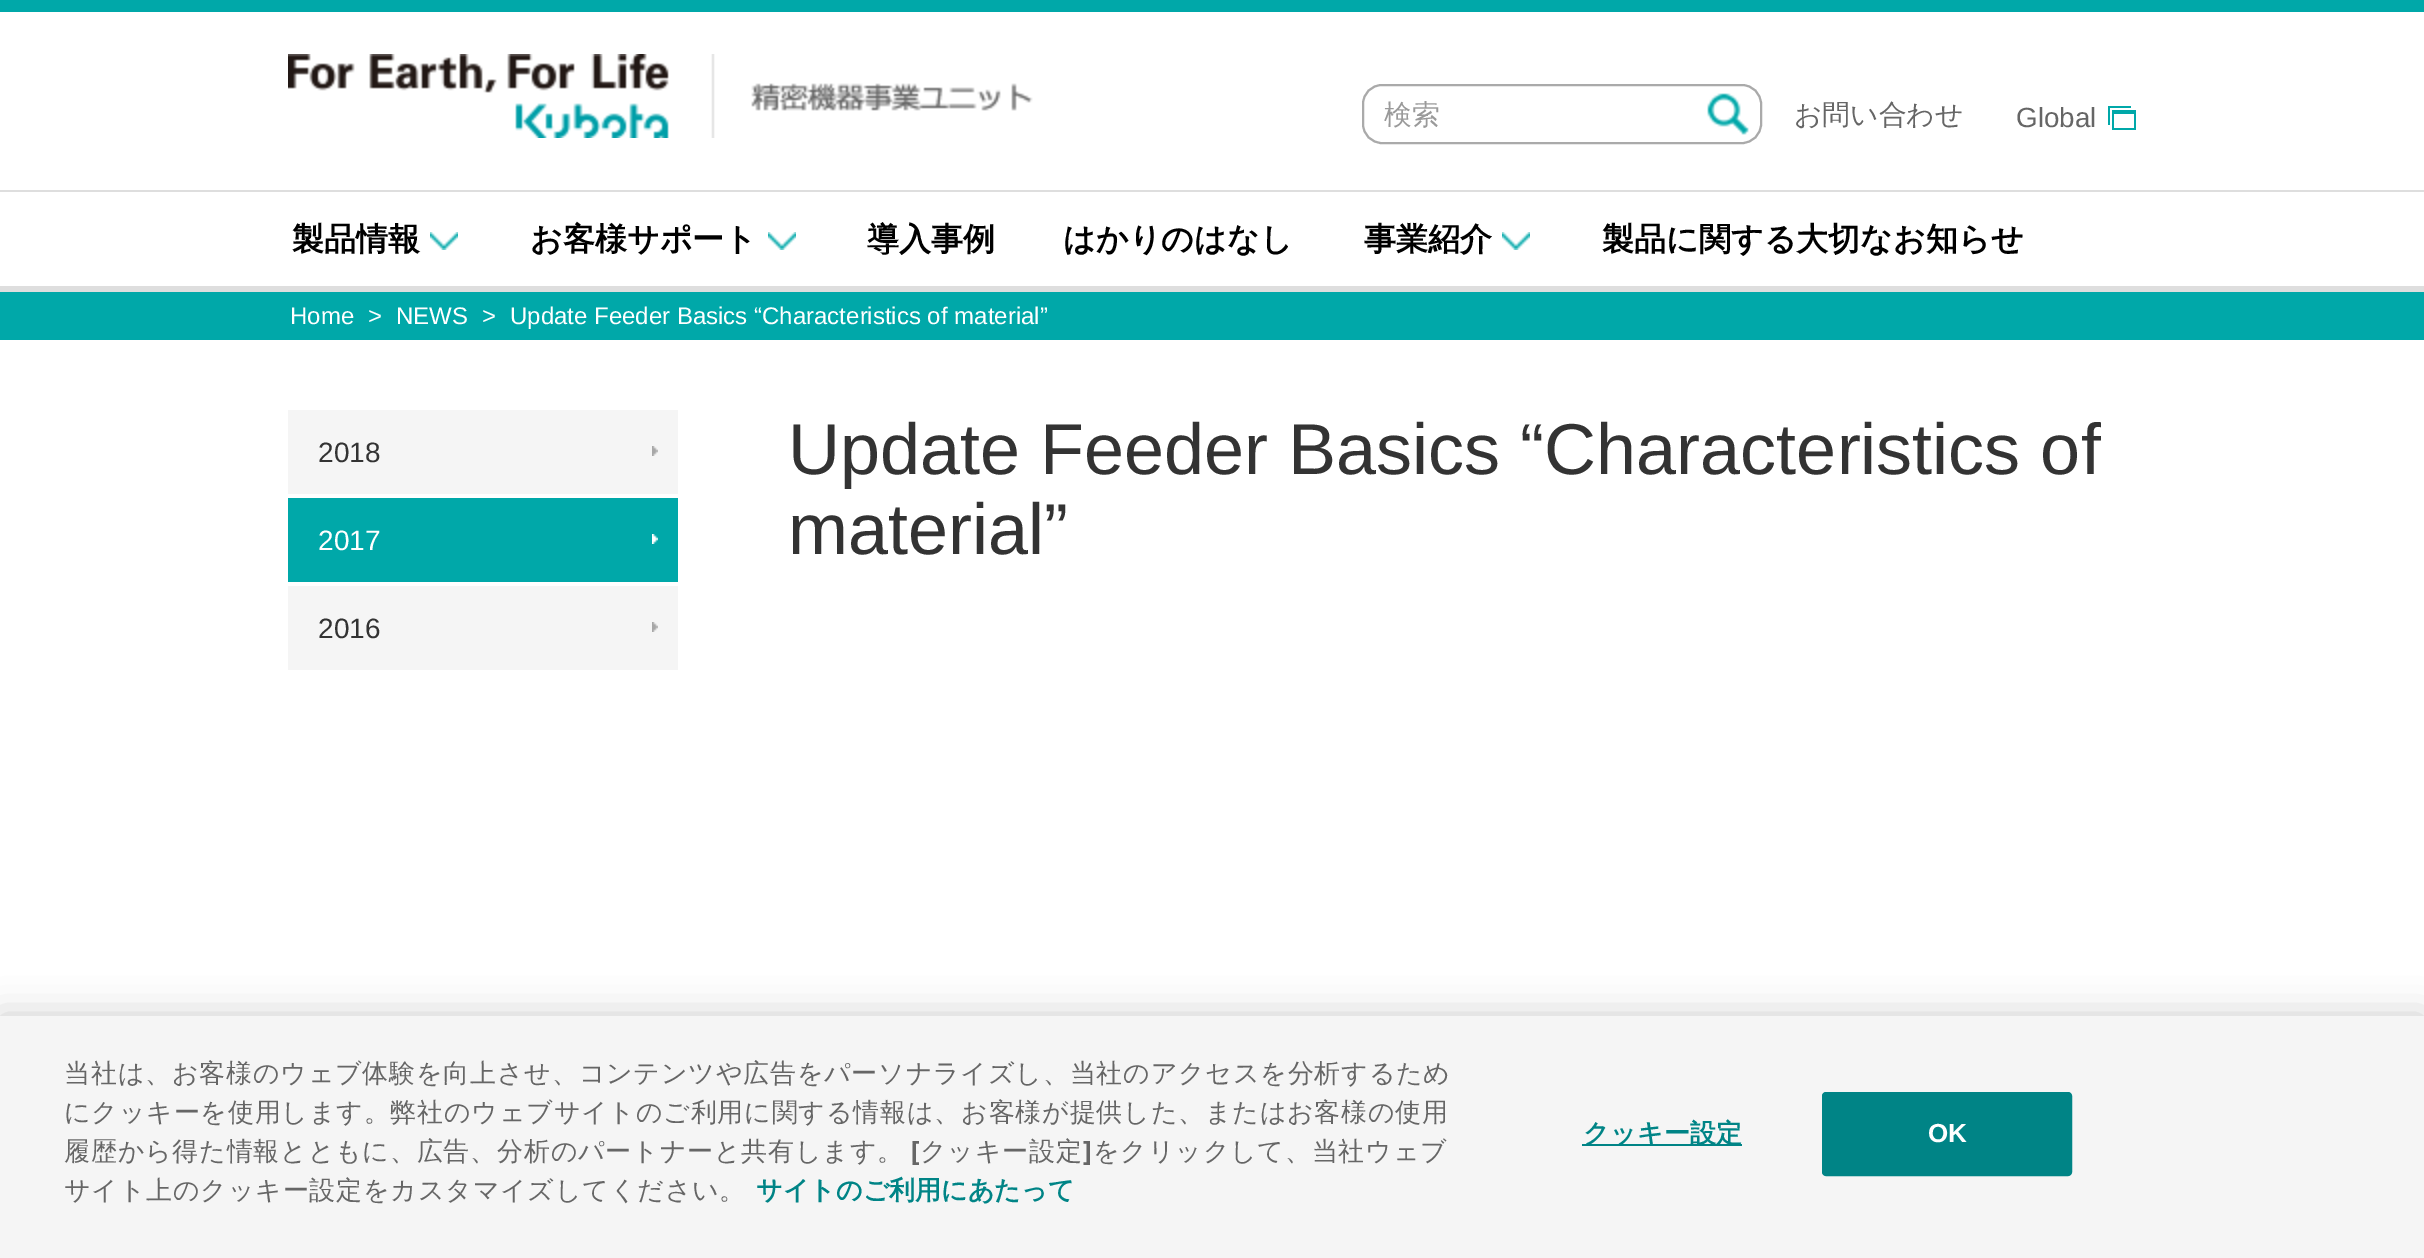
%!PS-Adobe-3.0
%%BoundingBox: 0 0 2424 1258
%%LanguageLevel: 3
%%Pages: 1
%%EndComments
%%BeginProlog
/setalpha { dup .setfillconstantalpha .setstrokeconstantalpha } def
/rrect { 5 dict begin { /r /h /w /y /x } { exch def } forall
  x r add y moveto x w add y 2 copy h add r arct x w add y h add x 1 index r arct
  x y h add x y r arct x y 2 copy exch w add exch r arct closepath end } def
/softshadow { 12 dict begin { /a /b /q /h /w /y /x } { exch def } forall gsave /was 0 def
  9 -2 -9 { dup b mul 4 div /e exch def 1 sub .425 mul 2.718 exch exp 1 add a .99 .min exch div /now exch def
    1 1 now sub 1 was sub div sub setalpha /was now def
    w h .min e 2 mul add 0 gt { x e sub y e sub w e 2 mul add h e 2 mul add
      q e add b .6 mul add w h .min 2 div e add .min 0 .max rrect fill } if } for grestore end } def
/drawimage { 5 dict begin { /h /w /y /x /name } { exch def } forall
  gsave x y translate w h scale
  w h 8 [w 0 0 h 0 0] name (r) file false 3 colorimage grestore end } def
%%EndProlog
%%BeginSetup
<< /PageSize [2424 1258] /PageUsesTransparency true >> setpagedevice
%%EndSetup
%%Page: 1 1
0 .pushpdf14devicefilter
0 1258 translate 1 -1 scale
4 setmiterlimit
1 setgray
0 0 2424 1258 rectfill
0 0.659 0.663 setrgbcolor
0 0 2424 12 rectfill
0.871 setgray
0 190 2424 2 rectfill
(images/1.raw) 288 54 745 84 drawimage
0.667 setgray
2 setlinewidth
1363 85 398 58 19 rrect stroke
(images/2.raw) 1707 93 42 42 drawimage
(images/3.raw) 2108 106 28 24 drawimage
0.871 setgray
0 286 2424 6 rectfill
(images/4.raw) 430 232 28 18 drawimage
(images/4.raw) 768 232 28 18 drawimage
(images/4.raw) 1502 232 28 18 drawimage
0 0.659 0.663 setrgbcolor
0 292 2424 48 rectfill
0.961 setgray
288 410 390 84 rectfill
(images/5.raw) 652 446 6 10 drawimage
0 0.659 0.663 setrgbcolor
288 498 390 84 rectfill
(images/6.raw) 652 534 6 10 drawimage
0.961 setgray
288 586 390 84 rectfill
(images/5.raw) 652 622 6 10 drawimage
0 setgray
0 1016 2424 242 0 18 0.2 softshadow
0.961 setgray
0 1016 2424 242 rectfill
0 0.518 0.525 setrgbcolor
1582 1144 160 2 rectfill
1823 1093 248 82 3 rrect gsave fill grestore
stroke
/WenQuanYiZenHei-Medium [27.75 0 0 -27.75 0 0] selectfont
0.604 setgray
1384 124 moveto (検索) show
0.4 setgray
1794 124 moveto (お問い合わせ) show
/LiberationSans-Regular [27.75 0 0 -27.75 0 0] selectfont
2016 127 moveto (Global) show
/WenQuanYiZenHei-Bold [32 0 0 -32 0 0] selectfont
0 setgray
292 250 moveto (製品情報) show
530 250 moveto (お客様サポート) show
867 250 moveto (導入事例) show
1063 250 moveto (はかりのはなし) show
1364 250 moveto (事業紹介) show
1602 250 moveto (製品に関する大切なお知らせ) show
/LiberationSans-Regular [24 0 0 -24 0 0] selectfont
1 setgray
290 324 moveto (Home) show
368 324 moveto (>) show
396 324 moveto (NEWS) show
482 324 moveto (>) show
510 324 moveto (Update Feeder Basics “Characteristics of material”) show
/LiberationSans-Regular [28 0 0 -28 0 0] selectfont
0.2 setgray
318 462 moveto (2018) show
1 setgray
318 550 moveto (2017) show
0.2 setgray
318 638 moveto (2016) show
/LiberationSans-Regular [72 0 0 -72 0 0] selectfont
788 474 moveto (Update Feeder Basics “Characteristics of) show
788 554 moveto (material”) show
/WenQuanYiZenHei-Medium [26.02 0 0 -26.02 0 0] selectfont
0.4 setgray
64 1082 moveto 0.78 0 (当社は、お客様のウェブ体験を向上させ、コンテンツや広告をパーソナライズし、当社のアクセスを分析するため) ashow
64 1121 moveto 0.78 0 (にクッキーを使用します。弊社のウェブサイトのご利用に関する情報は、お客様が提供した、またはお客様の使用) ashow
64 1160 moveto 0.78 0 (履歴から得た情報とともに、広告、分析のパートナーと共有します。) ashow
/Helvetica-Bold [26.02 0 0 -26.02 0 0] selectfont
911 1160 moveto 0.78 0 ([) ashow
/WenQuanYiZenHei-Medium [26.02 0 0 -26.02 0 0] selectfont
920 1160 moveto 0.78 0 (クッキー設定) ashow
/Helvetica-Bold [26.02 0 0 -26.02 0 0] selectfont
1083 1160 moveto 0.78 0 (]) ashow
/WenQuanYiZenHei-Medium [26.02 0 0 -26.02 0 0] selectfont
1093 1160 moveto 0.78 0 (をクリックして、当社ウェブ) ashow
64 1199 moveto 0.78 0 (サイト上のクッキー設定をカスタマイズしてください。) ashow
/WenQuanYiZenHei-Bold [26.02 0 0 -26.02 0 0] selectfont
0 0.518 0.525 setrgbcolor
756 1199 moveto (サイトのご利用にあたって) show
1583 1142 moveto 0.25 0 (クッキー設定) ashow
/LiberationSans-Bold [26.02 0 0 -26.02 0 0] selectfont
1 setgray
1928 1142 moveto 0.25 0 (OK) ashow
.poppdf14devicefilter showpage
%%EOF
